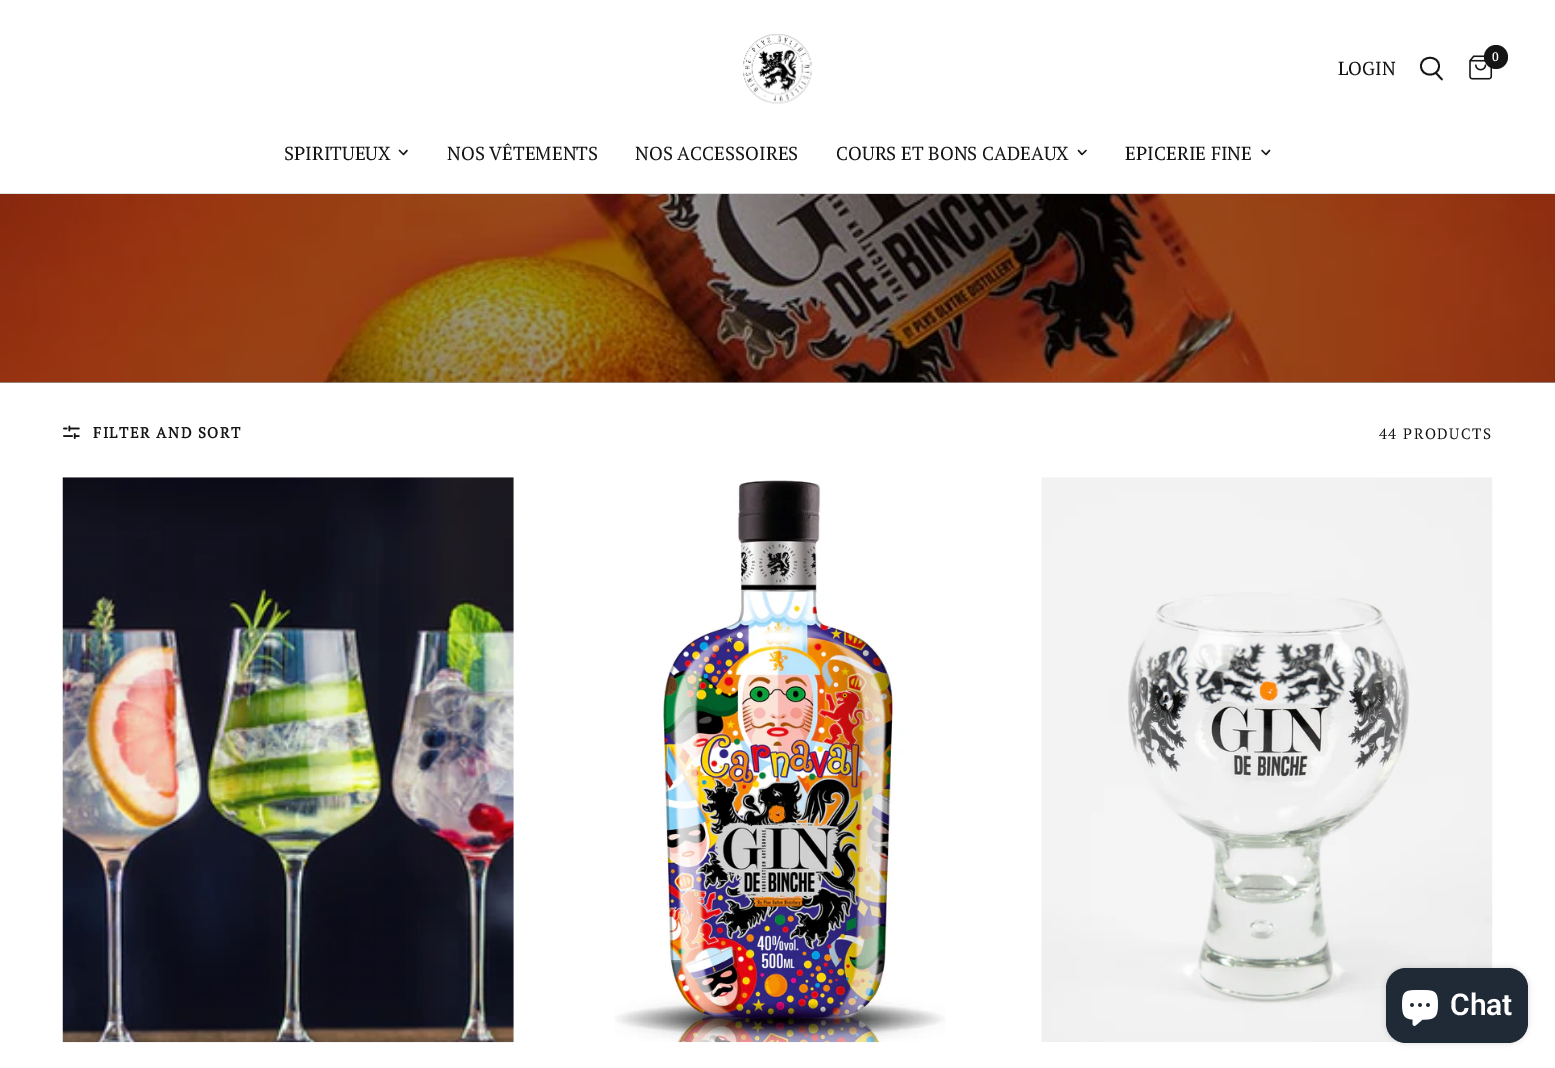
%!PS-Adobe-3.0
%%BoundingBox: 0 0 1555 1068
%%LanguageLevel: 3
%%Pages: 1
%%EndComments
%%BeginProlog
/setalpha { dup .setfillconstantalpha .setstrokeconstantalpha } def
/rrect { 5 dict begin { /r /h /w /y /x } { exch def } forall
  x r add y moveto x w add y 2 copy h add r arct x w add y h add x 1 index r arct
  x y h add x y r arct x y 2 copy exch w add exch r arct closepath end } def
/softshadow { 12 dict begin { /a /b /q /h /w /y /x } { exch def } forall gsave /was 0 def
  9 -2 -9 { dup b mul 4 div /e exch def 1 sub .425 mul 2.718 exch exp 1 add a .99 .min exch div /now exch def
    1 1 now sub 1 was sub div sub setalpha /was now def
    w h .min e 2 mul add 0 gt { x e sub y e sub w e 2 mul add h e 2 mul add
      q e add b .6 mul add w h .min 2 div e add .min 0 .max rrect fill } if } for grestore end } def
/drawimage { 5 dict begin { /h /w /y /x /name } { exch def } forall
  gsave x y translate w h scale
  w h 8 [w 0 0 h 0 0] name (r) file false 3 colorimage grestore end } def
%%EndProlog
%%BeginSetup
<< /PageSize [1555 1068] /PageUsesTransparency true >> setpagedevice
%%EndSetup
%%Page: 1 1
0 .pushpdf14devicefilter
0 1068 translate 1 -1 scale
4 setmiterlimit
1 setgray
0 0 1555 1068 rectfill
0.6 setgray
0 382 1555 1 rectfill
0.886 setgray
0 193 1555 1 rectfill
(images/1.raw) 743 34 69 70 drawimage
0.082 setgray
1.8 setlinewidth
1 setlinecap
1 setlinejoin
newpath 1436 73 moveto 1442 79.5 lineto 1439 66 moveto 1439 77.5 1421 77.5 1421 66 curveto 1421 55 1439 55 1439 66 curveto closepath stroke
(images/2.raw) 1469 55 24 25 drawimage
newpath 1496 57 12 0 360 arc closepath fill
1.4 setlinewidth
newpath 407 150.5 moveto 403.5 154.5 lineto 399.5 150.5 lineto stroke
newpath 1086 150.5 moveto 1082 154.5 lineto 1078.5 150.5 lineto stroke
newpath 1269.5 150.5 moveto 1266 154.5 lineto 1262 150.5 lineto stroke
(images/3.raw) 0 194 1555 189 drawimage
(images/4.raw) 63 425 17 14 drawimage
(images/5.raw) 62 477 452 566 drawimage
(images/6.raw) 614 480 332 563 drawimage
(images/7.raw) 1041 477 452 565 drawimage
0 setgray
1386 968 142 75 20 3 0.15 softshadow
0.125 0.165 0.212 setrgbcolor
1386 968 142 75 20 rrect fill
(images/8.raw) 1402 990 36 36 drawimage
/PTSerif-Regular [18.75 0 0 -18.75 0 0] selectfont
0.082 setgray
1338 75 moveto (LOGIN) show
/PTSerif-Bold [12 0 0 -12 0 0] selectfont
1 setgray
1492 61 moveto (0) show
/PTSerif-Regular [18.75 0 0 -18.75 0 0] selectfont
0.082 setgray
284 160 moveto (SPIRITUEUX) show
447 160 moveto (NOS VÊTEMENTS) show
635 160 moveto (NOS ACCESSOIRES) show
836 160 moveto (COURS ET BONS CADEAUX) show
1125 160 moveto (EPICERIE FINE) show
/PTSerif-Bold [15 0 0 -15 0 0] selectfont
93 438 moveto 1.5 0 (FILTER AND SORT) ashow
/PTSerif-Regular [15 0 0 -15 0 0] selectfont
1379 439 moveto 1.5 0 (44 PRODUCTS) ashow
/Roboto-SemiBold [30 0 0 -30 0 0] selectfont
1 setgray
1450 1015 moveto (Chat) show
.poppdf14devicefilter showpage
%%EOF
